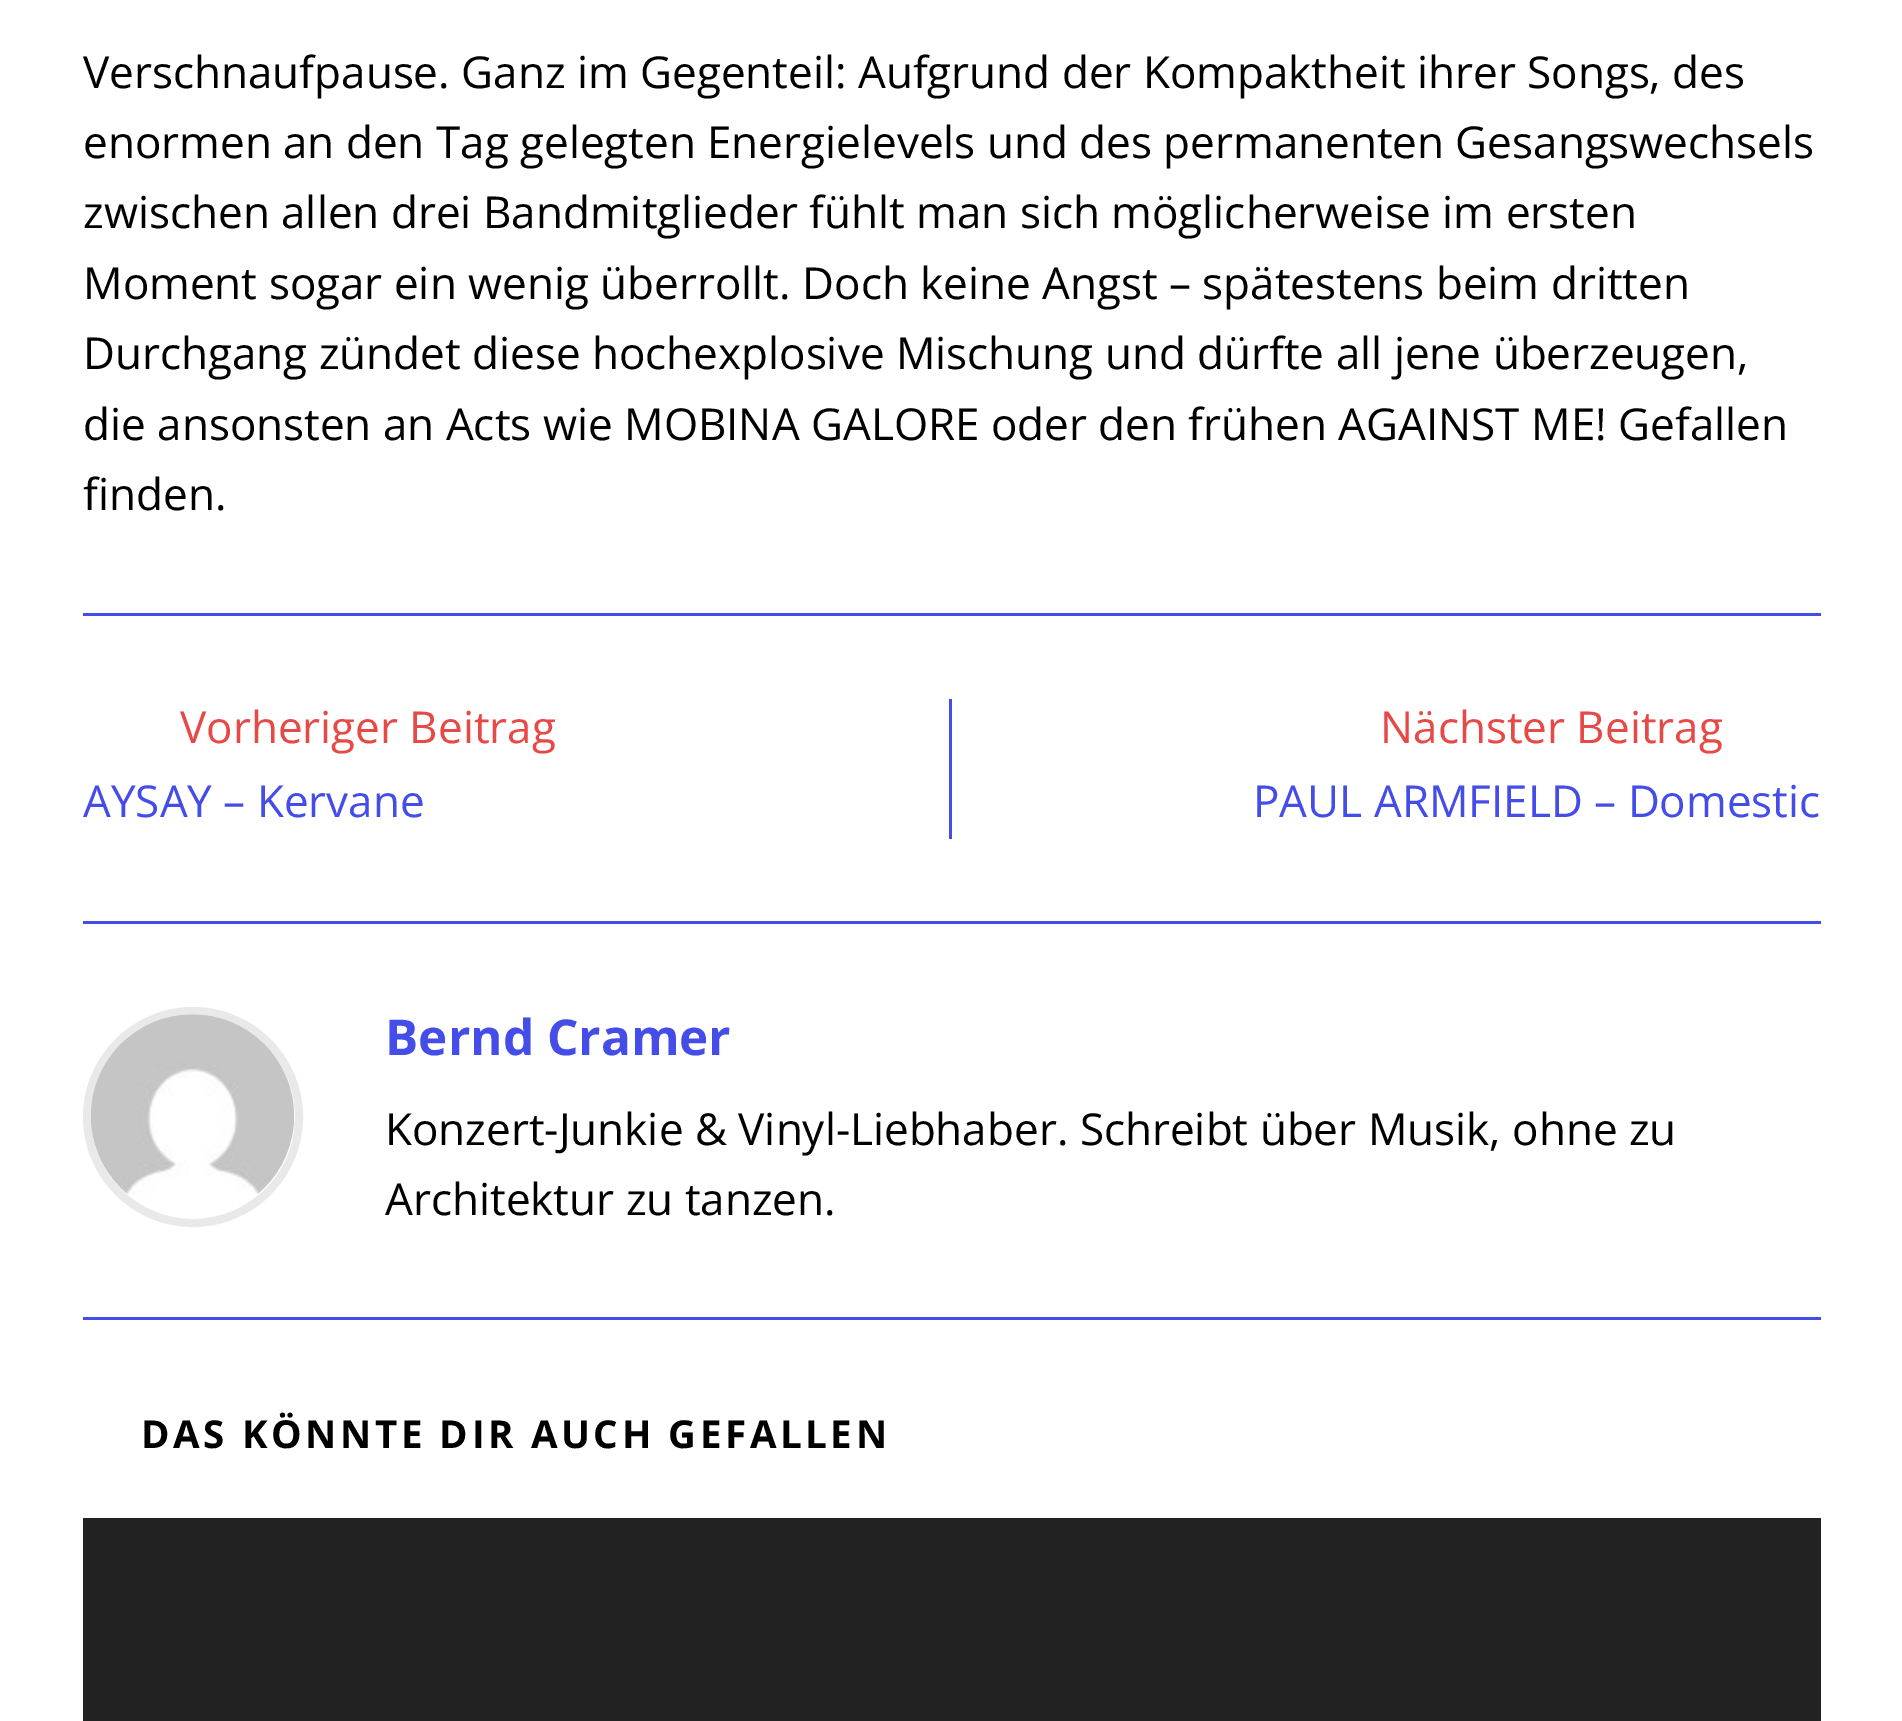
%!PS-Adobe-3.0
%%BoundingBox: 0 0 1902 1721
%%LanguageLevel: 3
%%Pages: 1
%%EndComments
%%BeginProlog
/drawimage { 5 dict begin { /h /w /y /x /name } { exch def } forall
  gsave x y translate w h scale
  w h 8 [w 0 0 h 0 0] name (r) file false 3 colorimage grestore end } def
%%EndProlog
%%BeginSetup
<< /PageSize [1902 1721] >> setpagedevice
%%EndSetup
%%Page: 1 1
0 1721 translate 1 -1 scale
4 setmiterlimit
1 setgray
0 0 1902 1721 rectfill
0.271 0.302 0.91 setrgbcolor
83 613 1738 3 rectfill
949 699 3 140 rectfill
83 921 1738 3 rectfill
0.914 setgray
8 setlinewidth
newpath 193 1117 106 0 360 arc closepath stroke
(images/1.raw) 91 1014 203 180 drawimage
0.271 0.302 0.91 setrgbcolor
83 1317 1738 3 rectfill
0.133 setgray
83 1518 1738 203 rectfill
/OpenSans-Regular [44 0 0 -44 0 0] selectfont
0 setgray
83 88 moveto (Verschnaufpause. Ganz im Gegenteil: Aufgrund der Kompaktheit ihrer Songs, des) show
83 158 moveto (enormen an den Tag gelegten Energielevels und des permanenten Gesangswechsels) show
83 228 moveto (zwischen allen drei Bandmitglieder fühlt man sich möglicherweise im ersten) show
83 299 moveto (Moment sogar ein wenig überrollt. Doch keine Angst – spätestens beim dritten) show
83 369 moveto (Durchgang zündet diese hochexplosive Mischung und dürfte all jene überzeugen,) show
83 440 moveto (die ansonsten an Acts wie MOBINA GALORE oder den frühen AGAINST ME! Gefallen) show
83 510 moveto (finden.) show
0.902 0.286 0.275 setrgbcolor
180 743 moveto (Vorheriger Beitrag) show
0.271 0.302 0.91 setrgbcolor
83 817 moveto (AYSAY – Kervane) show
0.902 0.286 0.275 setrgbcolor
1380 743 moveto (Nächster Beitrag) show
0.271 0.302 0.91 setrgbcolor
1253 817 moveto (PAUL ARMFIELD – Domestic) show
/OpenSans-Bold [49.5 0 0 -49.5 0 0] selectfont
385 1055 moveto (Bernd Cramer) show
/OpenSans-Regular [44 0 0 -44 0 0] selectfont
0 setgray
385 1145 moveto (Konzert-Junkie & Vinyl-Liebhaber. Schreibt über Musik, ohne zu) show
385 1215 moveto (Architektur zu tanzen.) show
/OpenSans-Bold [38.5 0 0 -38.5 0 0] selectfont
141 1448 moveto 3.6 0 (DAS KÖNNTE DIR AUCH GEFALLEN) ashow
showpage
%%EOF
